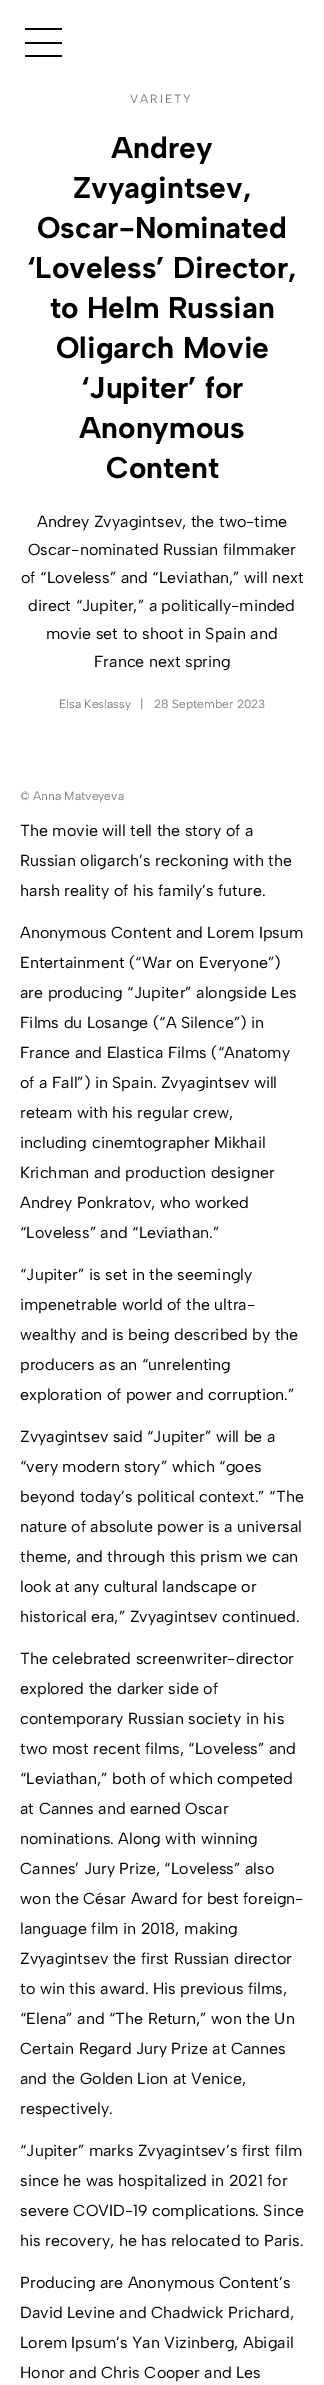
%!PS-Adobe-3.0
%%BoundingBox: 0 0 324 2385
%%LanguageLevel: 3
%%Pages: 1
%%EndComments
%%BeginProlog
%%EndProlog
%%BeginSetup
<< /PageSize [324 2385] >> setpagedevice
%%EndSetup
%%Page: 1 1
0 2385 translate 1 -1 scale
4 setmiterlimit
1 setgray
0 0 324 2385 rectfill
0 setgray
25 28 37 2 rectfill
25 42 37 2 rectfill
25 55 37 2 rectfill
/AlbertSans-Regular [12 0 0 -12 0 0] selectfont
0.494 setgray
130 103 moveto 2 0 (VARIETY) ashow
/AlbertSans-Bold [30 0 0 -30 0 0] selectfont
0 setgray
111 158 moveto (Andrey) show
73 198 moveto (Zvyagintsev,) show
37 238 moveto (Oscar-Nominated) show
27 278 moveto (‘Loveless’ Director,) show
50 318 moveto (to Helm Russian) show
56 358 moveto (Oligarch Movie) show
81 398 moveto (‘Jupiter’ for) show
79 438 moveto (Anonymous) show
106 478 moveto (Content) show
/AlbertSans-Regular [16 0 0 -16 0 0] selectfont
37 527 moveto (Andrey Zvyagintsev, the two-time) show
28 555 moveto (Oscar-nominated Russian filmmaker) show
21 583 moveto (of “Loveless” and “Leviathan,” will next) show
28 611 moveto (direct “Jupiter,” a politically-minded) show
46 639 moveto (movie set to shoot in Spain and) show
94 667 moveto (France next spring) show
/AlbertSans-Regular [12 0 0 -12 0 0] selectfont
0.494 setgray
59 708 moveto (Elsa Keslassy) show
140 708 moveto (|) show
154 708 moveto (28 September 2023) show
20 800 moveto (© Anna Matveyeva) show
/AlbertSans-Regular [16 0 0 -16 0 0] selectfont
0 setgray
20 836 moveto (The movie will tell the story of a) show
20 866 moveto (Russian oligarch’s reckoning with the) show
20 896 moveto (harsh reality of his family’s future.) show
20 938 moveto (Anonymous Content and Lorem Ipsum) show
20 968 moveto (Entertainment \(“War on Everyone”\)) show
20 998 moveto (are producing “Jupiter” alongside Les) show
20 1028 moveto (Films du Losange \(“A Silence”\) in) show
20 1058 moveto (France and Elastica Films \(“Anatomy) show
20 1088 moveto (of a Fall”\) in Spain. Zvyagintsev will) show
20 1118 moveto (reteam with his regular crew,) show
20 1148 moveto (including cinemtographer Mikhail) show
20 1178 moveto (Krichman and production designer) show
20 1208 moveto (Andrey Ponkratov, who worked) show
20 1238 moveto (“Loveless” and “Leviathan.”) show
20 1280 moveto (“Jupiter” is set in the seemingly) show
20 1310 moveto (impenetrable world of the ultra-) show
20 1340 moveto (wealthy and is being described by the) show
20 1370 moveto (producers as an “unrelenting) show
20 1400 moveto (exploration of power and corruption.”) show
20 1442 moveto (Zvyagintsev said “Jupiter” will be a) show
20 1472 moveto (“very modern story” which “goes) show
20 1502 moveto (beyond today’s political context.” “The) show
20 1532 moveto (nature of absolute power is a universal) show
20 1562 moveto (theme, and through this prism we can) show
20 1592 moveto (look at any cultural landscape or) show
20 1622 moveto (historical era,” Zvyagintsev continued.) show
20 1664 moveto (The celebrated screenwriter-director) show
20 1694 moveto (explored the darker side of) show
20 1724 moveto (contemporary Russian society in his) show
20 1754 moveto (two most recent films, “Loveless” and) show
20 1784 moveto (“Leviathan,” both of which competed) show
20 1814 moveto (at Cannes and earned Oscar) show
20 1844 moveto (nominations. Along with winning) show
20 1874 moveto (Cannes’ Jury Prize, “Loveless” also) show
20 1904 moveto (won the César Award for best foreign-) show
20 1934 moveto (language film in 2018, making) show
20 1964 moveto (Zvyagintsev the first Russian director) show
20 1994 moveto (to win this award. His previous films,) show
20 2024 moveto (“Elena” and “The Return,” won the Un) show
20 2054 moveto (Certain Regard Jury Prize at Cannes) show
20 2084 moveto (and the Golden Lion at Venice,) show
20 2114 moveto (respectively.) show
20 2156 moveto (“Jupiter” marks Zvyagintsev’s first film) show
20 2186 moveto (since he was hospitalized in 2021 for) show
20 2216 moveto (severe COVID-19 complications. Since) show
20 2246 moveto (his recovery, he has relocated to Paris.) show
20 2288 moveto (Producing are Anonymous Content’s) show
20 2318 moveto (David Levine and Chadwick Prichard,) show
20 2348 moveto (Lorem Ipsum’s Yan Vizinberg, Abigail) show
20 2378 moveto (Honor and Chris Cooper and Les) show
showpage
%%EOF
